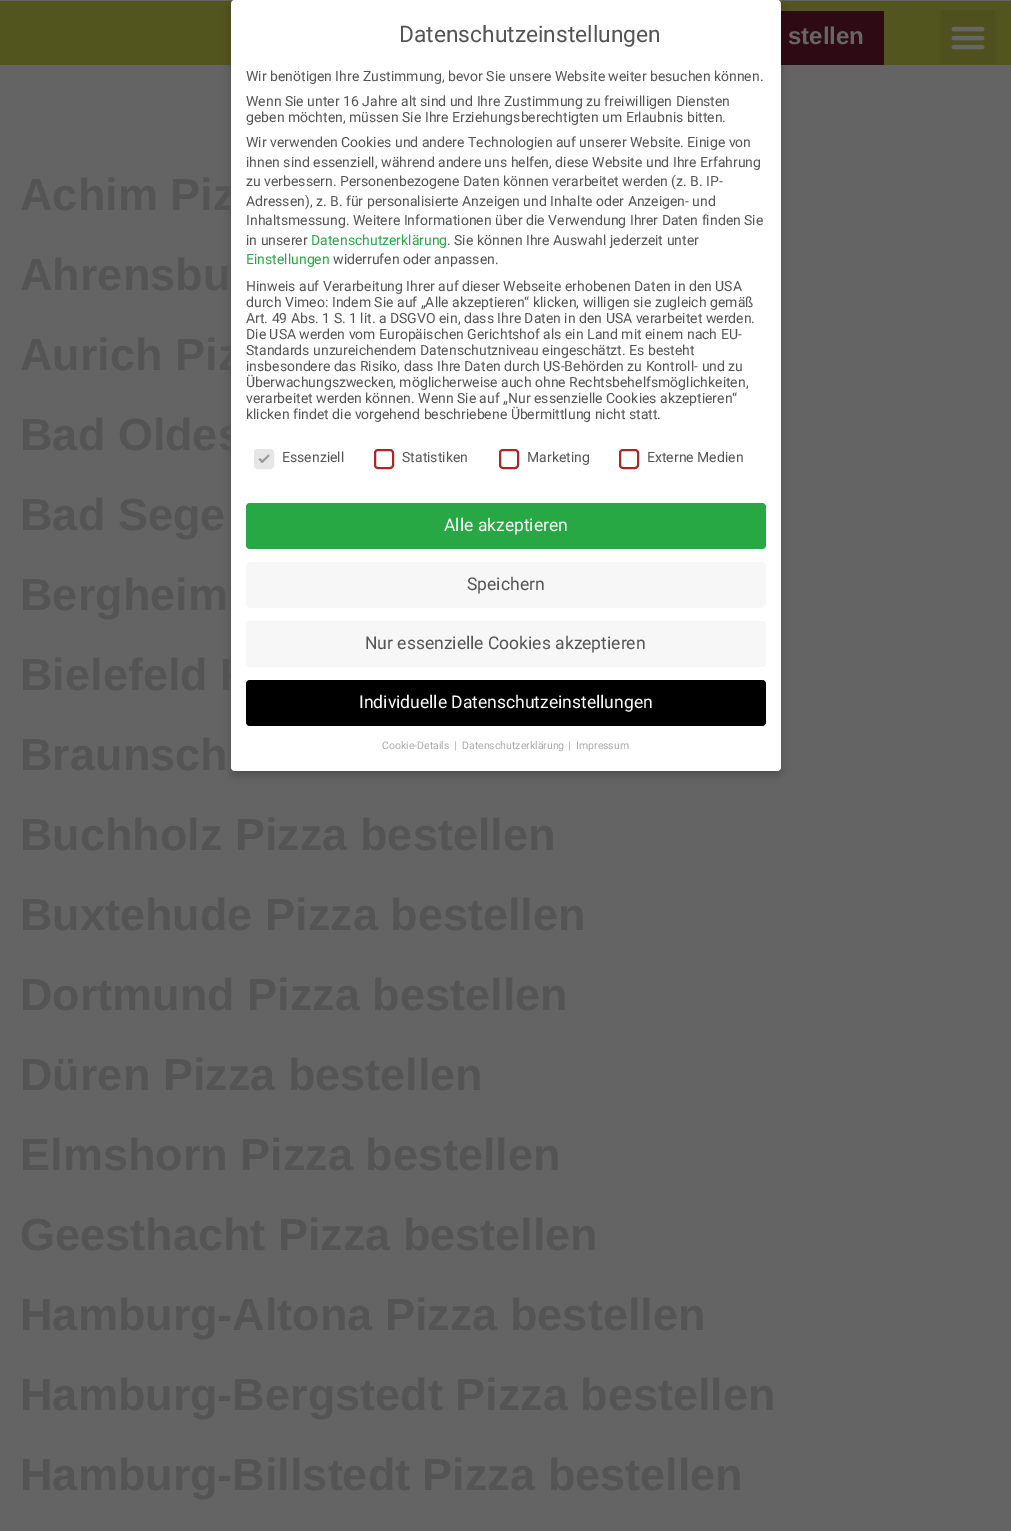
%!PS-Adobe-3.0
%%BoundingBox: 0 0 1011 1531
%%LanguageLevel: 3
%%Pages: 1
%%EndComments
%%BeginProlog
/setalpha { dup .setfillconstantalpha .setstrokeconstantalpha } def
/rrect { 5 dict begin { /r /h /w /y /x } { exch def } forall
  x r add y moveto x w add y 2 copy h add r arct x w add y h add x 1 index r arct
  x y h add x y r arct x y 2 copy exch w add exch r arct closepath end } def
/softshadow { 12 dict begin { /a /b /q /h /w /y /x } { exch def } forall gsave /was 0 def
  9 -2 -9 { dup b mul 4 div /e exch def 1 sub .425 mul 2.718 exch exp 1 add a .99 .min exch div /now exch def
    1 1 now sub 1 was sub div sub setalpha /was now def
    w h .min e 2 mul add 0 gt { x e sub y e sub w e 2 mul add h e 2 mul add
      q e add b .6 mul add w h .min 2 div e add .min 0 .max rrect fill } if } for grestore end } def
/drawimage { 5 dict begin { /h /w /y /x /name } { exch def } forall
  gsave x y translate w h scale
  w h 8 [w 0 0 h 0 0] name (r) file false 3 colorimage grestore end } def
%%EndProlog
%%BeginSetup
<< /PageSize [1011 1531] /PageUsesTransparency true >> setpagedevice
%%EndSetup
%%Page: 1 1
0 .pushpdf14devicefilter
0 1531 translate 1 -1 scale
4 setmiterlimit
0.392 setgray
0 0 1011 1531 rectfill
0.322 0.333 0.118 setrgbcolor
0 1 1011 64 rectfill
0.176 0.039 0.078 setrgbcolor
781 11 103 54 rectfill
0 setgray
231 4 550 771 4 4 0.2 softshadow
0.306 0.314 0.114 setrgbcolor
941 10 54 54 rectfill
(images/1.raw) 951 26 34 24 drawimage
/LiberationSans-Bold [24 0 0 -24 0 0] selectfont
0.4 setgray
788 44 moveto (stellen) show
/LiberationSans-Bold [45 0 0 -45 0 0] selectfont
0.329 setgray
20 210 moveto (Achim Piz) show
20 290 moveto (Ahrensbu) show
20 370 moveto (Aurich Piz) show
20 450 moveto (Bad Oldes) show
20 530 moveto (Bad Sege) show
20 610 moveto (Bergheim) show
20 690 moveto (Bielefeld P) show
1 setgray
231 0 550 771 4 rrect fill
0.655 0.157 0.157 setrgbcolor
2 setlinewidth
620 450 18 18 3 rrect stroke
/Roboto-Regular [14 0 0 -14 0 0] selectfont
0.329 setgray
647 462 moveto (Externe Medien) show
0.655 0.157 0.157 setrgbcolor
500 450 18 18 3 rrect stroke
0.329 setgray
527 462 moveto (Marketing) show
0.655 0.157 0.157 setrgbcolor
375 450 18 18 3 rrect stroke
0.329 setgray
402 462 moveto (Statistiken) show
0.902 setgray
255 450 18 18 3 rrect gsave fill grestore
stroke
0.6 setgray
newpath 268.5 454.5 moveto 269.5 456 lineto 262.5 463 lineto 261 461.5 lineto closepath fill
newpath 260 458 moveto 263.5 461.5 lineto 262 463 lineto 258.5 459.5 lineto closepath fill
0.329 setgray
282 462 moveto (Essenziell) show
246 419 moveto (klicken findet die vorgehend beschriebene Übermittlung nicht statt.) show
246 403 moveto (verarbeitet werden können. Wenn Sie auf „Nur essenzielle Cookies akzeptieren“) show
246 387 moveto (Überwachungszwecken, möglicherweise auch ohne Rechtsbehelfsmöglichkeiten,) show
246 371 moveto (insbesondere das Risiko, dass Ihre Daten durch US-Behörden zu Kontroll- und zu) show
246 355 moveto (Standards unzureichendem Datenschutzniveau eingeschätzt. Es besteht) show
246 339 moveto (Die USA werden vom Europäischen Gerichtshof als ein Land mit einem nach EU-) show
246 323 moveto (Art. 49 Abs. 1 S. 1 lit. a DSGVO ein, dass Ihre Daten in den USA verarbeitet werden.) show
246 307 moveto (durch Vimeo: Indem Sie auf „Alle akzeptieren“ klicken, willigen sie zugleich gemäß) show
246 291 moveto (Hinweis auf Verarbeitung Ihrer auf dieser Webseite erhobenen Daten in den USA) show
333 264 moveto (widerrufen oder anpassen.) show
0.157 0.655 0.271 setrgbcolor
246 264 moveto (Einstellungen) show
0.329 setgray
447 245 moveto (. Sie können Ihre Auswahl jederzeit unter) show
0.157 0.655 0.271 setrgbcolor
311 245 moveto (Datenschutzerklärung) show
0.329 setgray
246 245 moveto (in unserer) show
246 225 moveto (Inhaltsmessung. Weitere Informationen über die Verwendung Ihrer Daten finden Sie) show
246 206 moveto (Adressen\), z. B. für personalisierte Anzeigen und Inhalte oder Anzeigen- und) show
246 186 moveto (zu verbessern. Personenbezogene Daten können verarbeitet werden \(z. B. IP-) show
246 167 moveto (ihnen sind essenziell, während andere uns helfen, diese Website und Ihre Erfahrung) show
246 147 moveto (Wir verwenden Cookies und andere Technologien auf unserer Website. Einige von) show
246 122 moveto (geben möchten, müssen Sie Ihre Erziehungsberechtigten um Erlaubnis bitten.) show
246 106 moveto (Wenn Sie unter 16 Jahre alt sind und Ihre Zustimmung zu freiwilligen Diensten) show
246 81 moveto (Wir benötigen Ihre Zustimmung, bevor Sie unsere Website weiter besuchen können.) show
/Roboto-Regular [10.5 0 0 -10.5 0 0] selectfont
0.667 setgray
576 749 moveto (Impressum) show
568 749 moveto (|) show
462 749 moveto (Datenschutzerklärung) show
454 749 moveto (|) show
382 749 moveto (Cookie-Details) show
0 setgray
246 680 520 46 4 rrect fill
/Roboto-Regular [17.5 0 0 -17.5 0 0] selectfont
1 setgray
359 708 moveto (Individuelle Datenschutzeinstellungen) show
0.969 setgray
246 621 520 46 4 rrect fill
0.329 setgray
365 649 moveto (Nur essenzielle Cookies akzeptieren) show
0.969 setgray
246 562 520 46 4 rrect fill
0.329 setgray
467 590 moveto (Speichern) show
0.157 0.655 0.271 setrgbcolor
246 503 520 46 4 rrect fill
1 setgray
444 531 moveto (Alle akzeptieren) show
/Roboto-Regular [22.75 0 0 -22.75 0 0] selectfont
0.329 setgray
399 42 moveto (Datenschutzeinstellungen) show
/LiberationSans-Bold [45 0 0 -45 0 0] selectfont
20 770 moveto (Braunsch) show
20 850 moveto (Buchholz Pizza bestellen) show
20 930 moveto (Buxtehude Pizza bestellen) show
20 1010 moveto (Dortmund Pizza bestellen) show
20 1090 moveto (Düren Pizza bestellen) show
20 1170 moveto (Elmshorn Pizza bestellen) show
20 1250 moveto (Geesthacht Pizza bestellen) show
20 1330 moveto (Hamburg-Altona Pizza bestellen) show
20 1410 moveto (Hamburg-Bergstedt Pizza bestellen) show
20 1490 moveto (Hamburg-Billstedt Pizza bestellen) show
.poppdf14devicefilter showpage
%%EOF
